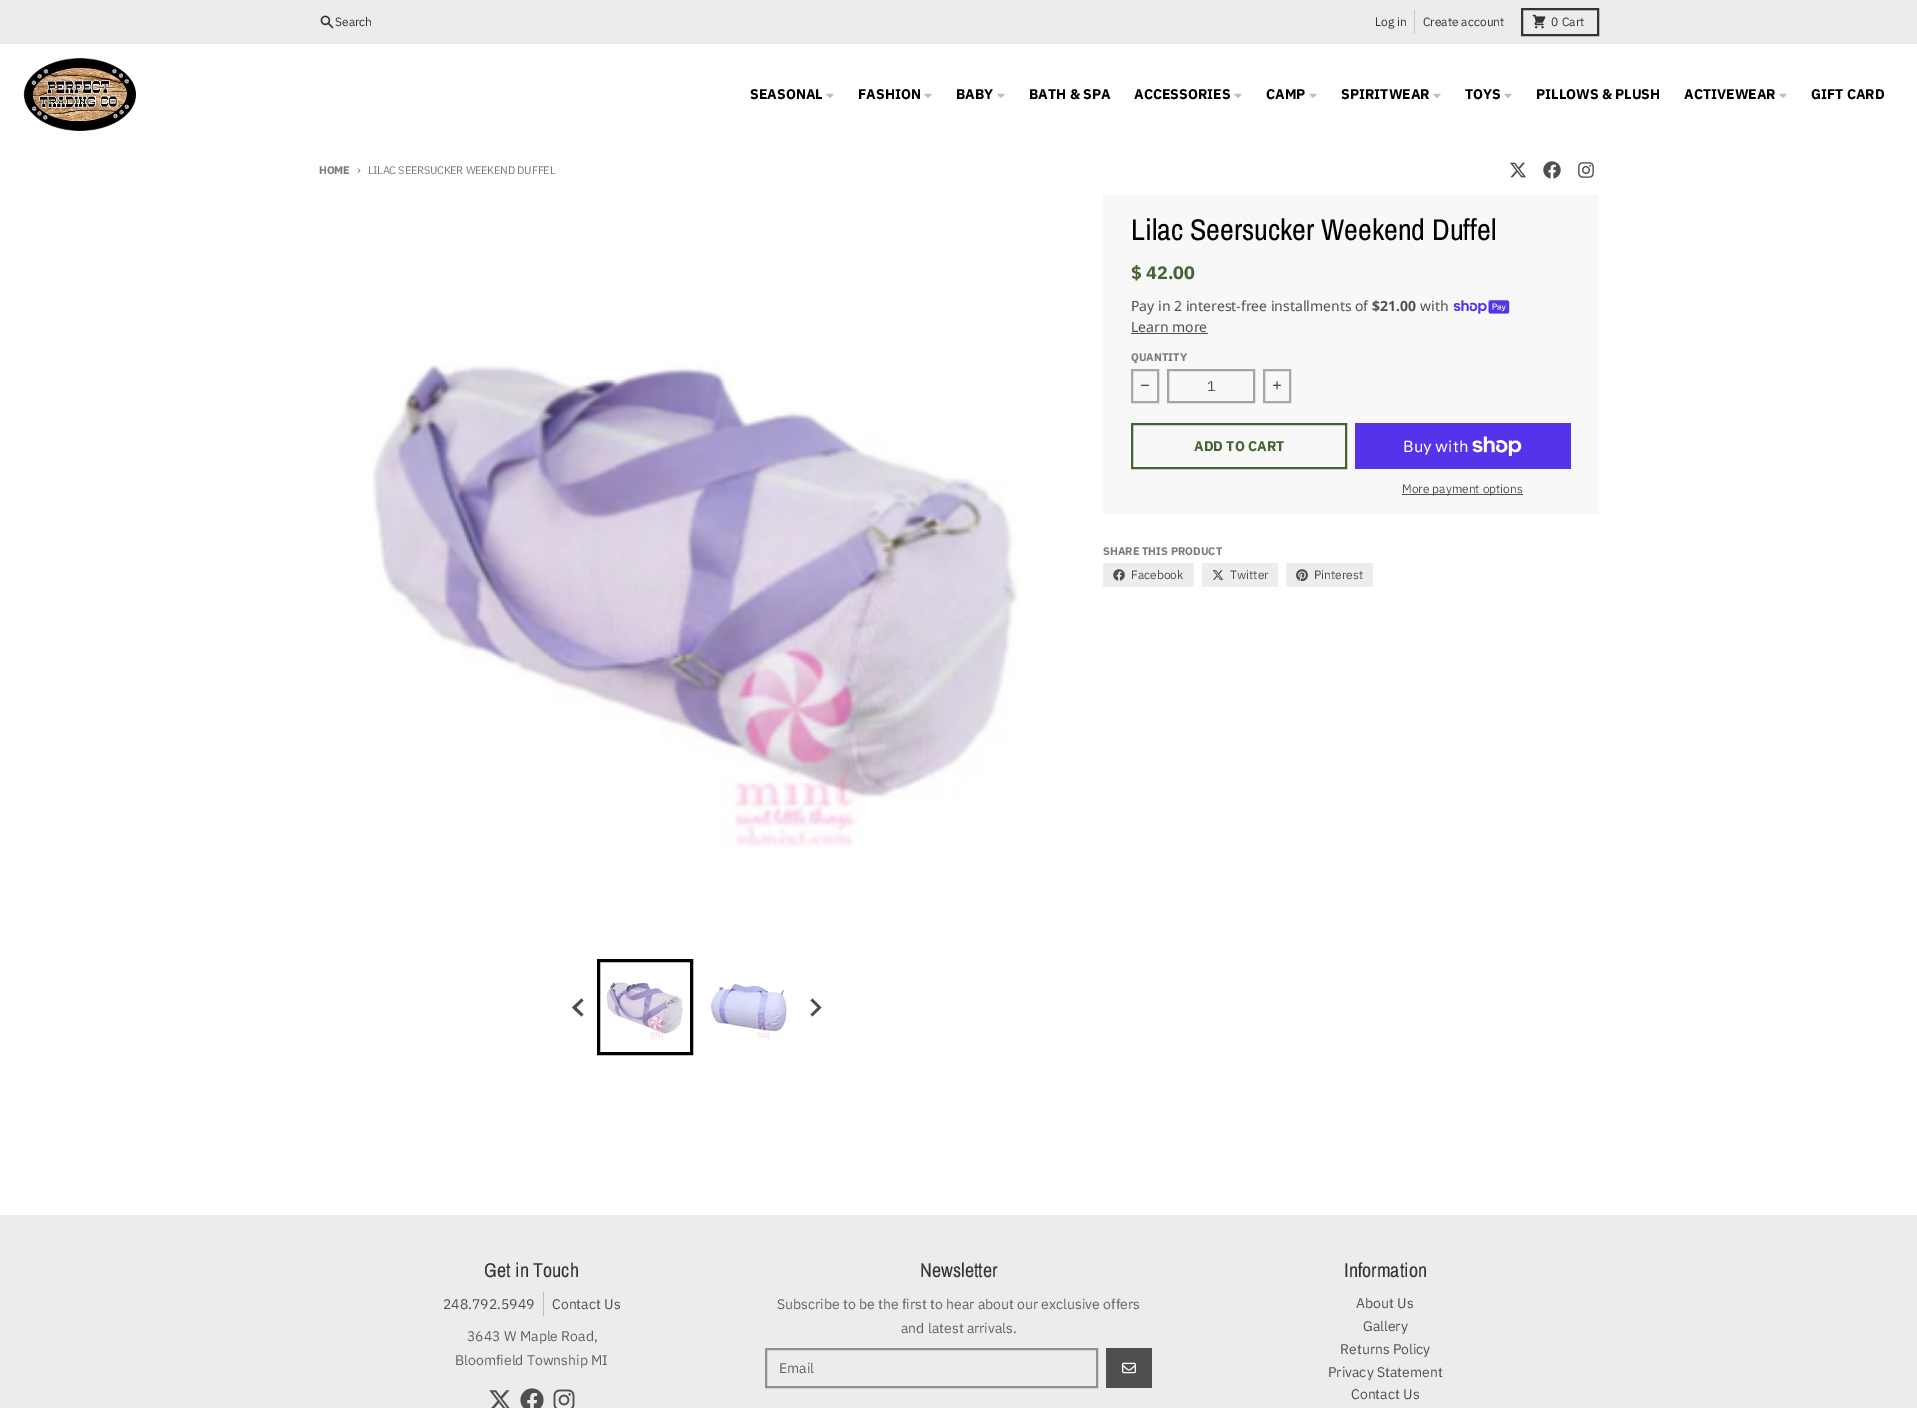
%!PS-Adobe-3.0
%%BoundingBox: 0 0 1917 1408
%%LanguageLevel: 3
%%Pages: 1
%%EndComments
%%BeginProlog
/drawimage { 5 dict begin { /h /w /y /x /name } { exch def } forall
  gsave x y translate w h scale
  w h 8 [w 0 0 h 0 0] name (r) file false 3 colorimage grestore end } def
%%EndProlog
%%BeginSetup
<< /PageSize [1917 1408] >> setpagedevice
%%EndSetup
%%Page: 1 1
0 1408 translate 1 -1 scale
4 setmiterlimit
0.925 setgray
0 0 1917 1408 rectfill
(images/1.raw) 320 15 14 14 drawimage
0.78 setgray
1414 10 1 24 rectfill
0.2 setgray
2 setlinewidth
1522 9 76 26 rectstroke
(images/2.raw) 1532 14 14 15 drawimage
1 setgray
0 44 1917 1171 rectfill
(images/3.raw) 23 58 114 73 drawimage
(images/4.raw) 826 93 8 5 drawimage
(images/4.raw) 924 93 8 5 drawimage
(images/4.raw) 997 93 8 5 drawimage
(images/4.raw) 1234 93 8 5 drawimage
(images/4.raw) 1309 93 8 5 drawimage
(images/4.raw) 1433 93 8 5 drawimage
(images/4.raw) 1504 93 8 5 drawimage
(images/4.raw) 1779 93 8 5 drawimage
(images/5.raw) 1510 162 16 16 drawimage
(images/6.raw) 1543 161 18 18 drawimage
(images/7.raw) 1578 162 16 16 drawimage
(images/8.raw) 372 364 647 484 drawimage
0 setgray
3 setlinewidth
598.5 960.5 93 93 rectstroke
(images/9.raw) 605 982 78 60 drawimage
(images/10.raw) 709 982 79 59 drawimage
0.302 setgray
newpath 581.5 998.5 moveto 583.5 1000.5 lineto 576.5 1007.5 lineto 583.5 1014.5 lineto 581.5 1016.5 lineto 572 1007.5 lineto closepath fill
newpath 812.5 998.5 moveto 810.5 1000.5 lineto 817.5 1007.5 lineto 810.5 1014.5 lineto 812.5 1016.5 lineto 821.5 1007.5 lineto closepath fill
0.973 setgray
1103 195 496 320 rectfill
(images/11.raw) 1453 300 57 14 drawimage
0.31 setgray
1131 333 77 1 rectfill
0.655 setgray
2 setlinewidth
1132 370 26 32 rectstroke
(images/12.raw) 1141 384 8 2 drawimage
0.643 setgray
1168 370 86 32 rectstroke
0.655 setgray
1264 370 26 32 rectstroke
(images/13.raw) 1273 381 8 9 drawimage
0.263 0.388 0.196 setrgbcolor
1132 424 214 44 rectstroke
0.329 0.2 0.922 setrgbcolor
1355 423 216 46 rectfill
(images/14.raw) 1472 436 50 20 drawimage
0.31 setgray
1402 494 121 1 rectfill
0.929 setgray
1103 563 91 24 rectfill
(images/15.raw) 1113 569 12 12 drawimage
1202 563 76 24 rectfill
(images/16.raw) 1212 570 12 10 drawimage
1286 563 87 24 rectfill
(images/17.raw) 1296 569 12 12 drawimage
0.745 setgray
543 1292 1 24 rectfill
(images/18.raw) 489 1390 21 18 drawimage
(images/19.raw) 520 1388 24 20 drawimage
(images/20.raw) 553 1389 22 19 drawimage
0.565 setgray
766 1349 331 38 rectstroke
0.31 setgray
1106 1348 46 40 rectfill
(images/21.raw) 1122 1362 14 12 drawimage
/IBMPlexSans-Regular [12 0 0 -12 0 0] selectfont
0.2 setgray
335 26 moveto (Search) show
1375 26 moveto (Log in) show
1423 26 moveto (Create account) show
1551 26 moveto (0) show
1562 26 moveto (Cart) show
/IBMPlexSans-Bold [14 0 0 -14 0 0] selectfont
0 setgray
750 99 moveto (SEASONAL) show
858 99 moveto (FASHION) show
956 99 moveto (BABY) show
1029 99 moveto (BATH & SPA) show
1134 99 moveto (ACCESSORIES) show
1266 99 moveto (CAMP) show
1341 99 moveto (SPIRITWEAR) show
1465 99 moveto (TOYS) show
1536 99 moveto (PILLOWS & PLUSH) show
1684 99 moveto (ACTIVEWEAR) show
1811 99 moveto (GIFT CARD) show
/IBMPlexSans-Bold [11 0 0 -11 0 0] selectfont
0.482 setgray
319 174 moveto -0.25 0 (HOME) ashow
/IBMPlexSans-Regular [12 0 0 -12 0 0] selectfont
357 174 moveto -0.25 0 (›) ashow
/IBMPlexSans-Regular [11 0 0 -11 0 0] selectfont
368 174 moveto -0.25 0 (LILAC SEERSUCKER WEEKEND DUFFEL) ashow
/ArchivoNarrow-Regular [30 0 0 -30 0 0] selectfont
0 setgray
1131 240 moveto (Lilac Seersucker Weekend Duffel) show
/IBMPlexSans-Bold [18 0 0 -18 0 0] selectfont
0.263 0.388 0.196 setrgbcolor
1131 279 moveto ($ 42.00) show
/NotoSans-Regular [14 0 0 -14 0 0] selectfont
0.31 setgray
1131 311 moveto (Pay in 2 interest-free installments of) show
/NotoSans-Bold [14 0 0 -14 0 0] selectfont
1372 311 moveto ($21.00) show
/NotoSans-Regular [14 0 0 -14 0 0] selectfont
1420 311 moveto (with) show
1131 332 moveto (Learn more) show
/IBMPlexSans-Bold [11 0 0 -11 0 0] selectfont
0.482 setgray
1131 361 moveto (QUANTITY) show
/IBMPlexSans-Regular [14 0 0 -14 0 0] selectfont
0.31 setgray
1207 391 moveto (1) show
/IBMPlexSans-Bold [14 0 0 -14 0 0] selectfont
0.263 0.388 0.196 setrgbcolor
1194 451 moveto (ADD TO CART) show
/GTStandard-Regular [16 0 0 -16 0 0] selectfont
1 setgray
1403 452 moveto (Buy with) show
/IBMPlexSans-Regular [12 0 0 -12 0 0] selectfont
0.31 setgray
1402 493 moveto (More payment options) show
/IBMPlexSans-Bold [11 0 0 -11 0 0] selectfont
0.482 setgray
1103 555 moveto (SHARE THIS PRODUCT) show
/IBMPlexSans-Regular [12 0 0 -12 0 0] selectfont
0.31 setgray
1131 579 moveto (Facebook) show
1230 579 moveto (Twitter) show
1314 579 moveto (Pinterest) show
/ArchivoNarrow-Regular [20 0 0 -20 0 0] selectfont
0.2 setgray
484 1277 moveto (Get in Touch) show
/IBMPlexSans-Regular [14 0 0 -14 0 0] selectfont
0.31 setgray
443 1309 moveto (248.792.5949) show
552 1309 moveto (Contact Us) show
0.38 setgray
467 1341 moveto (3643 W Maple Road,) show
455 1365 moveto (Bloomfield Township MI) show
/ArchivoNarrow-Regular [20 0 0 -20 0 0] selectfont
0.2 setgray
920 1277 moveto (Newsletter) show
/IBMPlexSans-Regular [14 0 0 -14 0 0] selectfont
0.38 setgray
777 1309 moveto (Subscribe to be the first to hear about our exclusive offers) show
901 1333 moveto (and latest arrivals.) show
779 1373 moveto (Email) show
/ArchivoNarrow-Regular [20 0 0 -20 0 0] selectfont
0.2 setgray
1344 1277 moveto (Information) show
/IBMPlexSans-Regular [14 0 0 -14 0 0] selectfont
0.31 setgray
1356 1308 moveto (About Us) show
1363 1331 moveto (Gallery) show
1340 1354 moveto (Returns Policy) show
1328 1377 moveto (Privacy Statement) show
1351 1399 moveto (Contact Us) show
showpage
%%EOF
